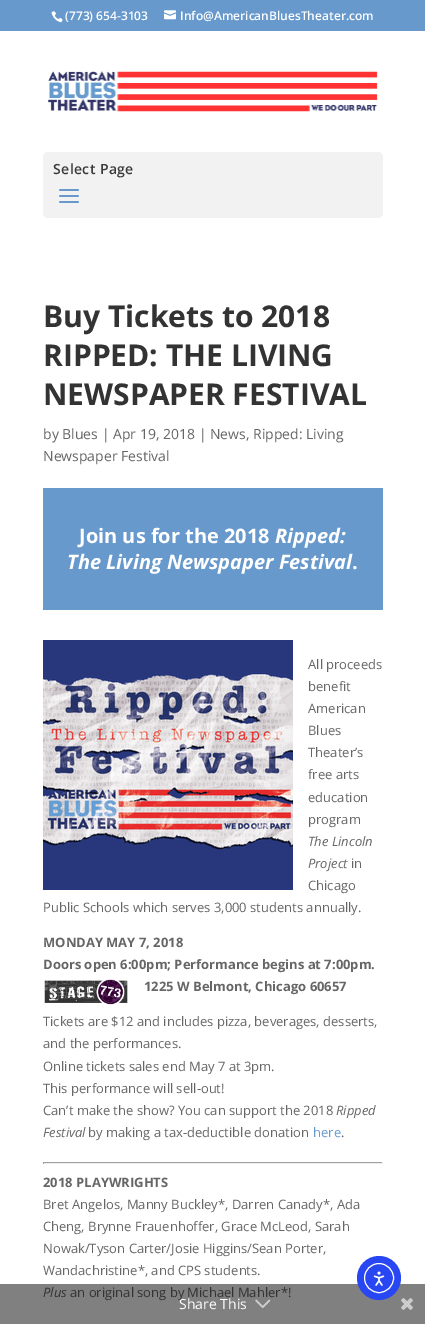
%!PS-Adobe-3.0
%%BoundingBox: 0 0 425 1324
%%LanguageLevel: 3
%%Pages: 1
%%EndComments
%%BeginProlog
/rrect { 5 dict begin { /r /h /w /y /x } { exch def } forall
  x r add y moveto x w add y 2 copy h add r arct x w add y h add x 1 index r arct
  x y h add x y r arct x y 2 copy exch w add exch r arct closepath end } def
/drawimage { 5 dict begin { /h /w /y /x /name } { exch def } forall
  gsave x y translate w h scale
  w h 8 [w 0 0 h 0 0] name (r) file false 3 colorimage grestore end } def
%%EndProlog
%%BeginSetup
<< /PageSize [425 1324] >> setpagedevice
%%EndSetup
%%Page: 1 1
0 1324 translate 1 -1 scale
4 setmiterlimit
1 setgray
0 0 425 1324 rectfill
0.502 setgray
0 1284 425 40 rectfill
0.404 0.6 0.8 setrgbcolor
0 0 425 31 rectfill
(images/1.raw) 51 11 12 12 drawimage
(images/2.raw) 164 10 12 10 drawimage
(images/3.raw) 48 71 330 41 drawimage
0.949 setgray
43 152 340 66 5 rrect fill
(images/4.raw) 59 189 20 14 drawimage
0.404 0.6 0.8 setrgbcolor
43 488 340 122 rectfill
(images/5.raw) 43 640 250 250 drawimage
(images/6.raw) 44 979 84 26 drawimage
0.624 setgray
43 1162 340 1 rectfill
0.933 setgray
382 1162 1 2 rectfill
43 1163 340 1 rectfill
0.624 setgray
43 1162 1 2 rectfill
0.157 0.278 0.953 setrgbcolor
newpath 379 1278 22 0 360 arc closepath fill
1 setgray
newpath 379 1278 14.5 0 360 arc closepath stroke
(images/7.raw) 373 1271 12 15 drawimage
(images/9.raw) 401 1298 12 12 drawimage
/OpenSans-SemiBold [12 0 0 -12 0 0] selectfont
65 20 moveto (\(773\) 654-3103) show
180 20 moveto (Info@AmericanBluesTheater.com) show
/OpenSans-SemiBold [14 0 0 -14 0 0] selectfont
0.227 setgray
53 174 moveto 0.4 0 (Select Page) ashow
/OpenSans-Bold [30 0 0 -30 0 0] selectfont
0.2 setgray
43 327 moveto (Buy Tickets to 2018) show
43 366 moveto (RIPPED: THE LIVING) show
43 405 moveto (NEWSPAPER FESTIVAL) show
/OpenSans-Regular [14 0 0 -14 0 0] selectfont
0.4 setgray
43 439 moveto (by Blues | Apr 19, 2018 | News, Ripped: Living) show
43 461 moveto (Newspaper Festival) show
/OpenSans-Bold [20 0 0 -20 0 0] selectfont
1 setgray
79 543 moveto (Join us for the 2018) show
/OpenSans-BoldItalic [20 0 0 -20 0 0] selectfont
275 543 moveto (Ripped:) show
67 569 moveto (The Living Newspaper Festival) show
/OpenSans-Bold [20 0 0 -20 0 0] selectfont
352 569 moveto (.) show
/OpenSans-Regular [13 0 0 -13 0 0] selectfont
0.4 setgray
308 669 moveto (All proceeds) show
308 691 moveto (benefit) show
308 713 moveto (American) show
308 735 moveto (Blues) show
308 757 moveto (Theater’s) show
308 779 moveto (free arts) show
308 802 moveto (education) show
308 824 moveto (program) show
/OpenSans-Italic [13 0 0 -13 0 0] selectfont
308 846 moveto (The Lincoln) show
308 868 moveto (Project) show
/OpenSans-Regular [13 0 0 -13 0 0] selectfont
351 868 moveto (in) show
308 890 moveto (Chicago) show
43 912 moveto (Public Schools which serves 3,000 students annually.) show
/OpenSans-Bold [13 0 0 -13 0 0] selectfont
43 947 moveto (MONDAY MAY 7, 2018) show
43 969 moveto (Doors open 6:00pm; Performance begins at 7:00pm.) show
144 991 moveto (1225 W Belmont, Chicago 60657) show
/OpenSans-Regular [13 0 0 -13 0 0] selectfont
43 1026 moveto (Tickets are $12 and includes pizza, beverages, desserts,) show
43 1048 moveto (and the performances.) show
43 1071 moveto (Online tickets sales end May 7 at 3pm.) show
43 1093 moveto (This performance will sell-out!) show
43 1115 moveto (Can’t make the show? You can support the 2018) show
/OpenSans-Italic [13 0 0 -13 0 0] selectfont
336 1115 moveto (Ripped) show
43 1137 moveto (Festival) show
/OpenSans-Regular [13 0 0 -13 0 0] selectfont
88 1137 moveto (by making a tax-deductible donation) show
0.404 0.6 0.8 setrgbcolor
313 1137 moveto (here) show
0.4 setgray
341 1137 moveto (.) show
/OpenSans-Bold [13 0 0 -13 0 0] selectfont
43 1187 moveto (2018 PLAYWRIGHTS) show
/OpenSans-Regular [13 0 0 -13 0 0] selectfont
43 1209 moveto (Bret Angelos, Manny Buckley*, Darren Canady*, Ada) show
43 1231 moveto (Cheng, Brynne Frauenhoffer, Grace McLeod, Sarah) show
43 1253 moveto (Nowak/Tyson Carter/Josie Higgins/Sean Porter,) show
43 1275 moveto (Wandachristine*, and CPS students.) show
/OpenSans-Italic [13 0 0 -13 0 0] selectfont
0.2 setgray
43 1297 moveto (Plus) show
/OpenSans-Regular [13 0 0 -13 0 0] selectfont
70 1297 moveto (an original song by Michael Mahler*!) show
/OpenSans-Regular [14 0 0 -14 0 0] selectfont
1 setgray
179 1309 moveto (Share This) show
(images/8.raw) 255 1299 16 9 drawimage
showpage
%%EOF
